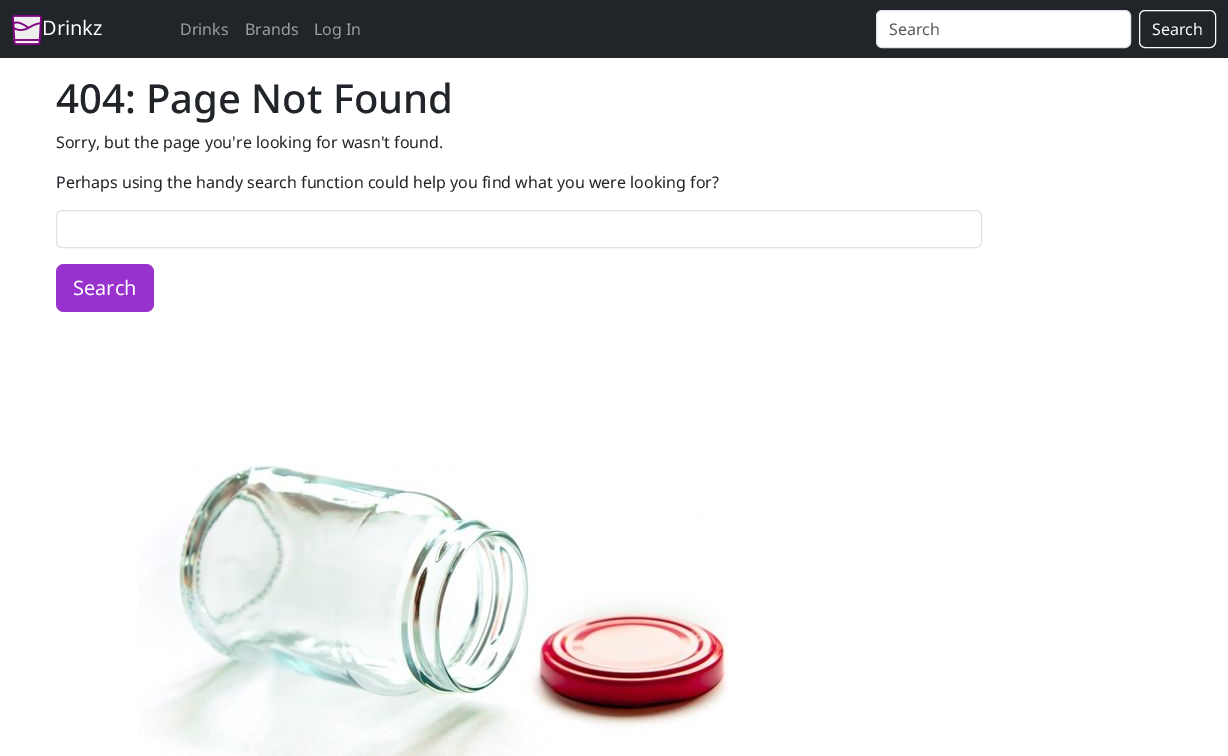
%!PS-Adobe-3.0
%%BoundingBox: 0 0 1228 756
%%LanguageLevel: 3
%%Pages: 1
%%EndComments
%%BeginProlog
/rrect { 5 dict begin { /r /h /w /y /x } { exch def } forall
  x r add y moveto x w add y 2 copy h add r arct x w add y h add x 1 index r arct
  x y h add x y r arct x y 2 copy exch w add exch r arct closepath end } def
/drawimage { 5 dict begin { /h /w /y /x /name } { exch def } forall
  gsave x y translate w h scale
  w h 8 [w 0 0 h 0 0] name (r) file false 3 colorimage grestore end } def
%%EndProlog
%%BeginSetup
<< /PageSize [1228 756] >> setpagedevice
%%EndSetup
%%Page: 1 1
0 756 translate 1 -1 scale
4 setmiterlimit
1 setgray
0 0 1228 756 rectfill
0.129 0.145 0.161 setrgbcolor
0 0 1228 58 rectfill
(images/1.raw) 12 15 30 30 drawimage
1 setgray
876.5 10.5 254 37 5.5 rrect gsave fill grestore
0.871 0.886 0.902 setrgbcolor
stroke
0.973 0.976 0.98 setrgbcolor
1139.5 10.5 76 37 5.5 rrect stroke
0.871 0.886 0.902 setrgbcolor
56.5 210.5 925 37 5.5 rrect stroke
0.6 0.196 0.8 setrgbcolor
56 264 98 48 8 rrect fill
(images/2.raw) 138 464 591 292 drawimage
/NotoSans-Regular [20 0 0 -20 0 0] selectfont
1 setgray
42 35 moveto (Drinkz) show
/NotoSans-Regular [16 0 0 -16 0 0] selectfont
0.608 0.616 0.624 setrgbcolor
180 35 moveto (Drinks) show
245 35 moveto (Brands) show
314 35 moveto (Log In) show
0.349 0.361 0.373 setrgbcolor
889 35 moveto (Search) show
0.973 0.976 0.98 setrgbcolor
1152 35 moveto (Search) show
/NotoSans-Medium [40 0 0 -40 0 0] selectfont
0.129 0.145 0.161 setrgbcolor
56 113 moveto (404: Page Not Found) show
/NotoSans-Regular [16 0 0 -16 0 0] selectfont
56 148 moveto (Sorry, but the page you're looking for wasn't found.) show
56 188 moveto (Perhaps using the handy search function could help you find what you were looking for?) show
/NotoSans-Regular [20 0 0 -20 0 0] selectfont
1 setgray
73 295 moveto (Search) show
showpage
%%EOF
